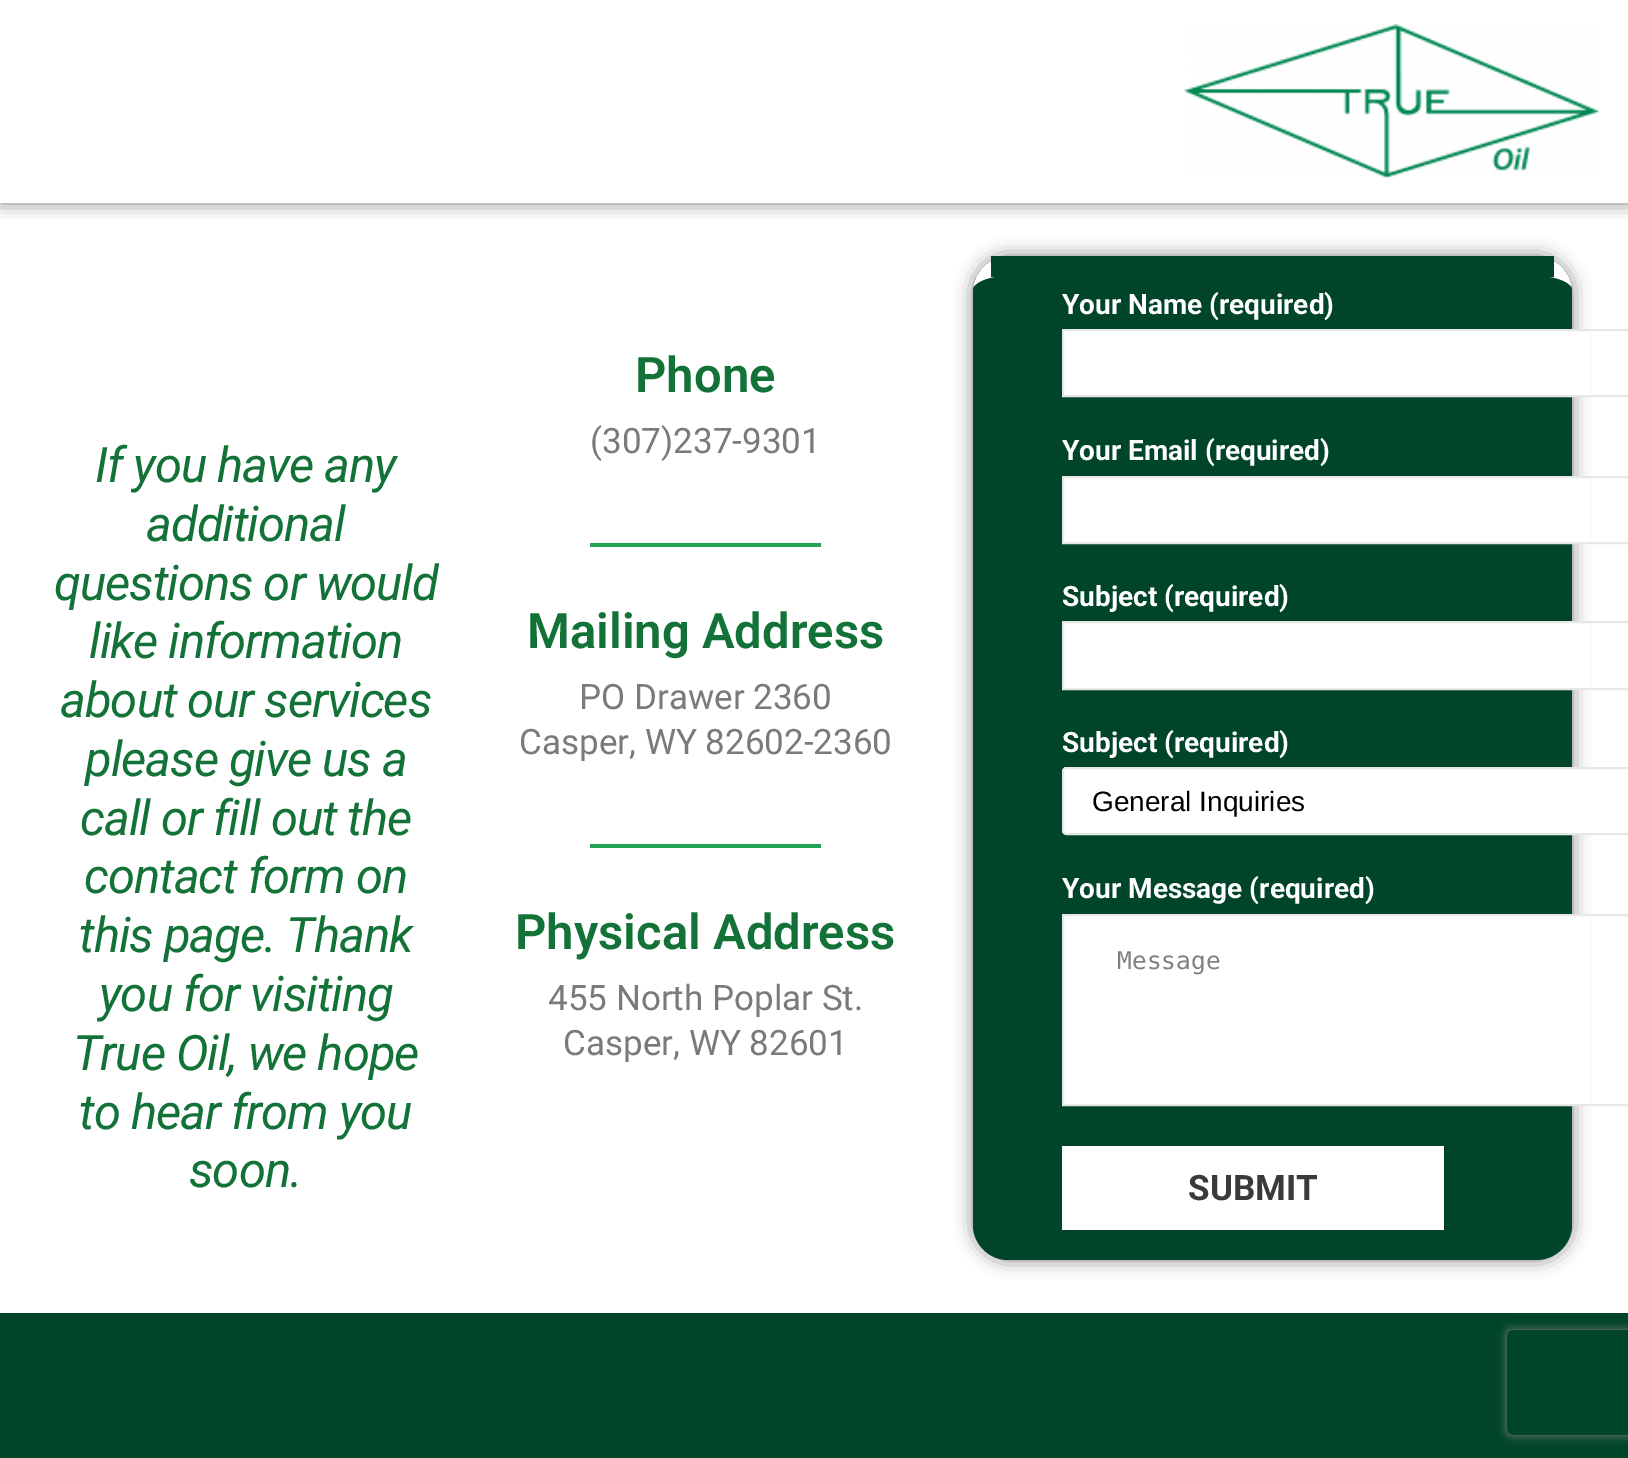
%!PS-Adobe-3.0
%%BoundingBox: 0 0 1628 1458
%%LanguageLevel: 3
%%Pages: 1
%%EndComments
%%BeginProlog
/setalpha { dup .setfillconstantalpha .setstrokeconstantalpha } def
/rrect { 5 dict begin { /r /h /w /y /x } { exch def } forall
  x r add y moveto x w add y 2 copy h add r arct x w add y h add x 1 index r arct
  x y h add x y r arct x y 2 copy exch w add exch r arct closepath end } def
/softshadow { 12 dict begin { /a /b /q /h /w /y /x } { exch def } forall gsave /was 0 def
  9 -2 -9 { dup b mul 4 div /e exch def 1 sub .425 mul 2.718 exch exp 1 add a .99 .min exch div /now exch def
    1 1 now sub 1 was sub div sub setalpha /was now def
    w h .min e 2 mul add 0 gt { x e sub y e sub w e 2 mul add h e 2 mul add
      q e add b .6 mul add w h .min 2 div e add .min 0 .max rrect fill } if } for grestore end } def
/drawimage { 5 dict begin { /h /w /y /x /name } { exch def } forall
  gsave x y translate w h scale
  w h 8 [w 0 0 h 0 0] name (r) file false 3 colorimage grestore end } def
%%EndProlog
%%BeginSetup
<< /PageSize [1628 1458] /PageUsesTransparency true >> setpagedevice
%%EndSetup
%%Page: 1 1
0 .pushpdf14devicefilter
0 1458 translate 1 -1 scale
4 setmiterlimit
1 setgray
0 0 1628 1458 rectfill
gsave
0 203 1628 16 rectclip
0 setgray
0 0 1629 203 0 9 0.5 softshadow
grestore
(images/1.raw) 1184 24 416 154 drawimage
0.137 0.643 0.333 setrgbcolor
590 543 231 4 rectfill
590 844 231 4 rectfill
gsave
newpath 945 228 moveto 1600 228 lineto 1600 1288 lineto 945 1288 lineto closepath 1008 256 moveto 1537 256 lineto 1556.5 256 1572 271.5 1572 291 curveto 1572 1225 lineto 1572 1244.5 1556.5 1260 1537 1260 curveto 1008 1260 lineto 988.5 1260 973 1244.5 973 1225 curveto 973 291 lineto 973 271.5 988.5 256 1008 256 curveto closepath eoclip newpath
0 setgray
973 256 599 1004 35 9 0.5 softshadow
grestore
0 0.271 0.161 setrgbcolor
newpath 1008 276 moveto 1536 276 lineto 1556 276 1572 283 1572 290 curveto 1572 1225 lineto 1572 1244 1556 1260 1536 1260 curveto 1008 1260 lineto 989 1260 973 1244 973 1225 curveto 973 290 lineto 973 283 989 276 1008 276 curveto closepath fill
991 256 563 21 rectfill
1 setgray
1064 331 526 64 rectfill
0.906 setgray
2 setlinewidth
1063 330 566 66 rectstroke
1 setgray
1064 478 526 64 rectfill
0.906 setgray
1063 477 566 66 rectstroke
1 setgray
1064 623 526 65 rectfill
0.906 setgray
1063 622 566 67 rectstroke
1 setgray
newpath 1067 767 moveto 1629 767 lineto 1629 835 lineto 1067 835 lineto 1064 835 1062 833 1062 830 curveto 1062 772 lineto 1062 769 1064 767 1067 767 curveto closepath fill
0.906 setgray
1063 768 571 66 4 rrect stroke
1 setgray
1064 916 526 188 rectfill
0.906 setgray
1063 915 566 190 rectstroke
1 setgray
1062 1146 382 84 rectfill
0 0.271 0.161 setrgbcolor
0 1313 1628 145 rectfill
gsave
newpath 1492 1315 moveto 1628 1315 lineto 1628 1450 lineto 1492 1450 lineto closepath 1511 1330 moveto 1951 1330 lineto 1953 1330 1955 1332 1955 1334 curveto 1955 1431 lineto 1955 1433 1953 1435 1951 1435 curveto 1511 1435 lineto 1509 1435 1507 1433 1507 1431 curveto 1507 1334 lineto 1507 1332 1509 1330 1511 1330 curveto closepath eoclip newpath
0.502 setgray
1507 1330 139 105 4 4.5 1 softshadow
grestore
/Roboto-Italic [49 0 0 -49 0 0] selectfont
0.075 0.447 0.22 setrgbcolor
95 482 moveto -1.05 0 (If you have any) ashow
146 541 moveto -1.05 0 (additional) ashow
54 600 moveto -1.05 0 (questions or would) ashow
89 658 moveto -1.05 0 (like information) ashow
60 717 moveto -1.05 0 (about our services) ashow
85 776 moveto -1.05 0 (please give us a) ashow
80 835 moveto -1.05 0 (call or fill out the) ashow
84 893 moveto -1.05 0 (contact form on) ashow
79 952 moveto -1.05 0 (this page. Thank) ashow
99 1011 moveto -1.05 0 (you for visiting) ashow
73 1070 moveto -1.05 0 (True Oil, we hope) ashow
79 1129 moveto -1.05 0 (to hear from you) ashow
189 1187 moveto -1.05 0 (soon.) ashow
/Roboto-SemiBold [49 0 0 -49 0 0] selectfont
635 392 moveto (Phone) show
/Roboto-Regular [35 0 0 -35 0 0] selectfont
0.478 setgray
590 453 moveto (\(307\)237-9301) show
/Roboto-SemiBold [49 0 0 -49 0 0] selectfont
0.075 0.447 0.22 setrgbcolor
527 648 moveto (Mailing Address) show
/Roboto-Regular [35 0 0 -35 0 0] selectfont
0.478 setgray
579 709 moveto (PO Drawer 2360) show
519 754 moveto (Casper, WY 82602-2360) show
/Roboto-SemiBold [49 0 0 -49 0 0] selectfont
0.075 0.447 0.22 setrgbcolor
515 949 moveto (Physical Address) show
/Roboto-Regular [35 0 0 -35 0 0] selectfont
0.478 setgray
548 1010 moveto (455 North Poplar St.) show
563 1055 moveto (Casper, WY 82601) show
/Roboto-Bold [28 0 0 -28 0 0] selectfont
1 setgray
1062 314 moveto (Your Name \(required\)) show
1062 460 moveto (Your Email \(required\)) show
1062 606 moveto (Subject \(required\)) show
1062 752 moveto (Subject \(required\)) show
/LiberationSans-Regular [28 0 0 -28 0 0] selectfont
0 setgray
1092 811 moveto (General Inquiries) show
/Roboto-Bold [28 0 0 -28 0 0] selectfont
1 setgray
1062 898 moveto (Your Message \(required\)) show
/DejaVuSansMono-Regular [24.5 0 0 -24.5 0 0] selectfont
0.502 setgray
1117 969 moveto (Message) show
/Roboto-Bold [35 0 0 -35 0 0] selectfont
0.227 setgray
1188 1200 moveto (SUBMIT) show
.poppdf14devicefilter showpage
%%EOF
